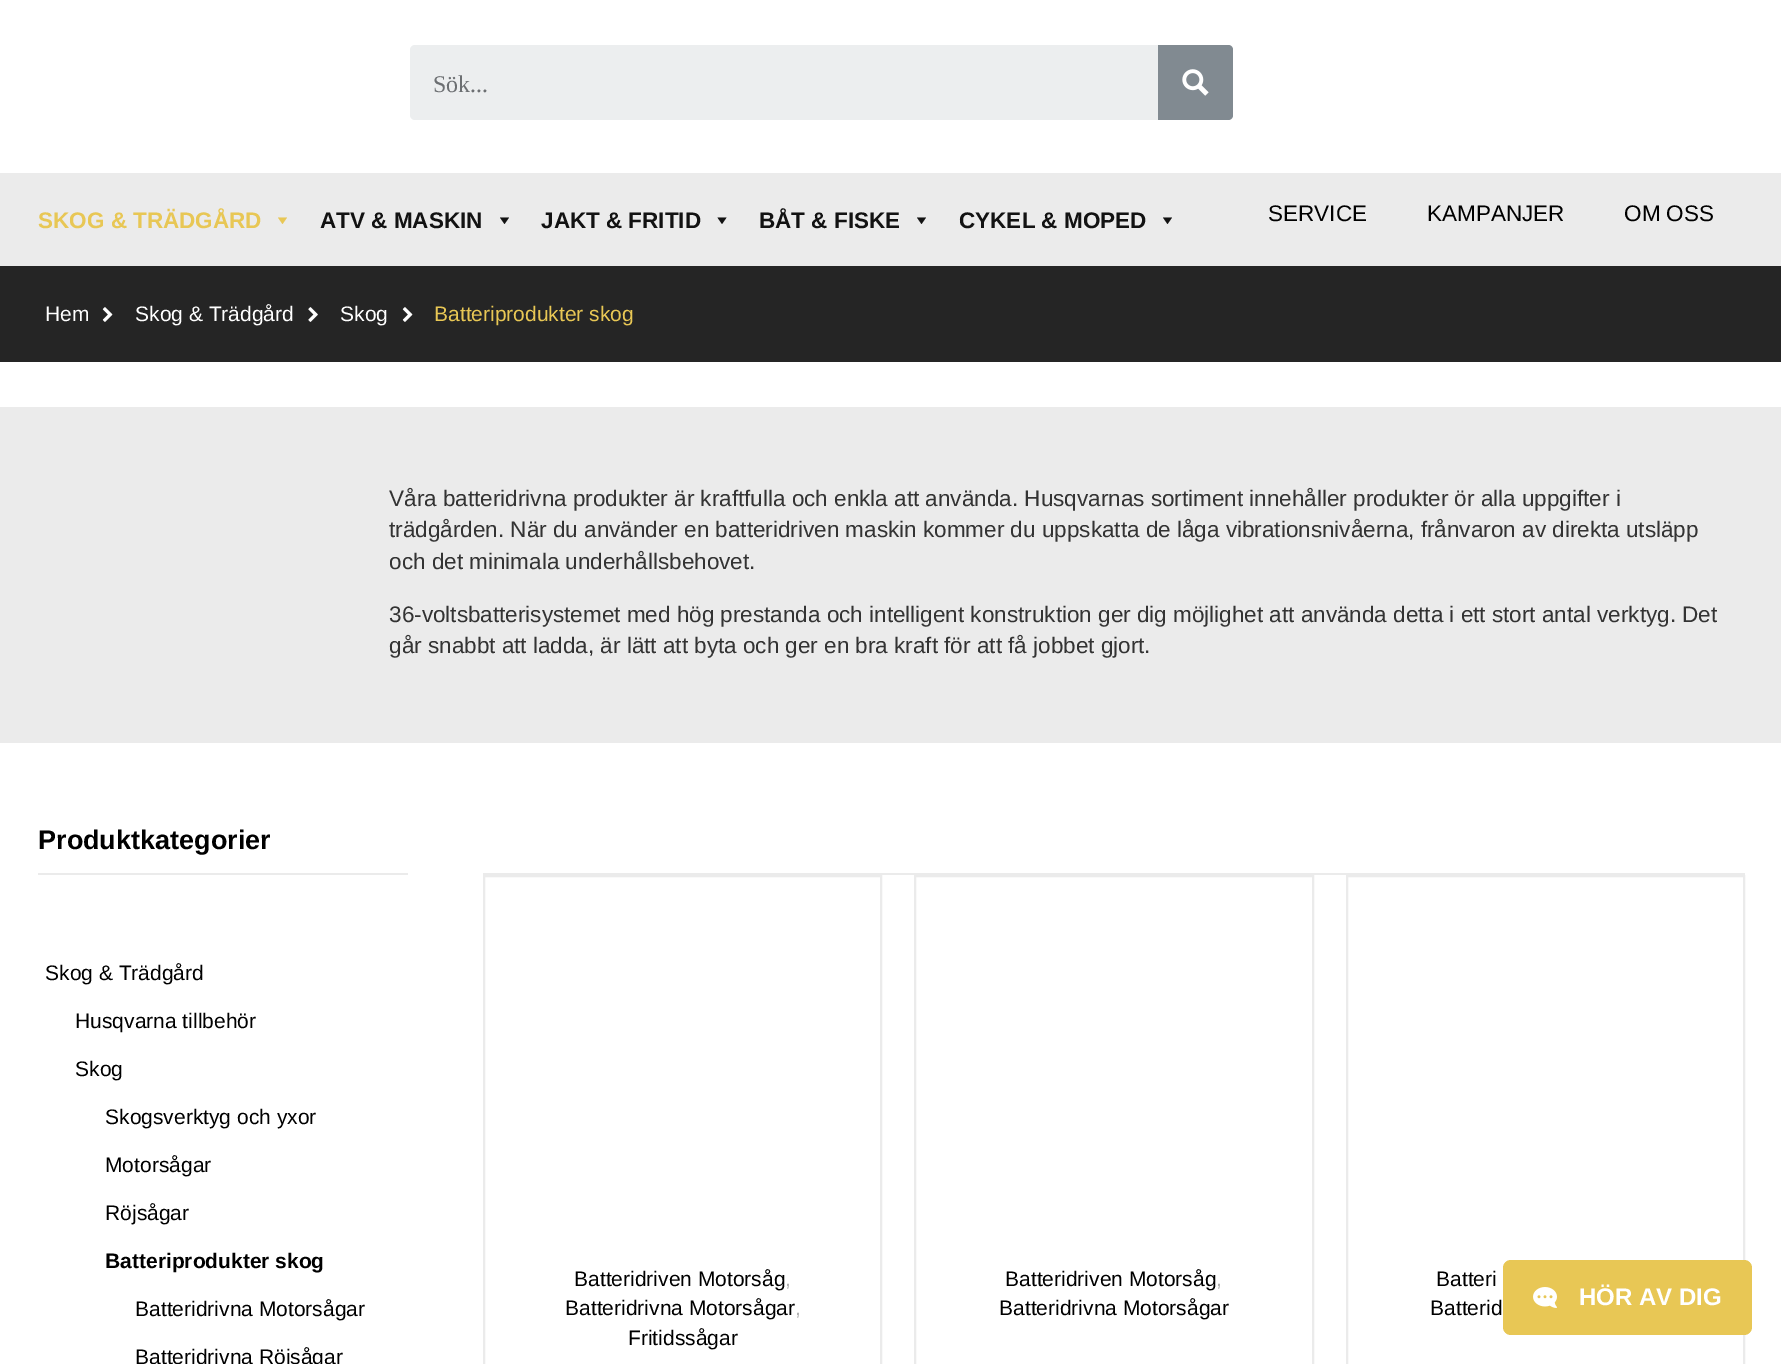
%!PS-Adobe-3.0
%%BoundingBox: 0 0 1781 1364
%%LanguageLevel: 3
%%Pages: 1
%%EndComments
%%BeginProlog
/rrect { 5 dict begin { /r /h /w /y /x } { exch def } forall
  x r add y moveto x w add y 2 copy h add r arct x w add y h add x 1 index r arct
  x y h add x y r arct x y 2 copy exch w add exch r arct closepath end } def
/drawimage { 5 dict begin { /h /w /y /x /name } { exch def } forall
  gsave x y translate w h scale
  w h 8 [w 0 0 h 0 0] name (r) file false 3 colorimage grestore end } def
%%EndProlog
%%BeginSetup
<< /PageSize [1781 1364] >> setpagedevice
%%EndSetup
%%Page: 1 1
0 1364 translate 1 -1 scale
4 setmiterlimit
1 setgray
0 0 1781 1364 rectfill
0.925 0.933 0.937 setrgbcolor
410 45 823 75 5 rrect fill
0.506 0.541 0.569 setrgbcolor
newpath 1158 45 moveto 1228 45 lineto 1231 45 1233 47 1233 50 curveto 1233 115 lineto 1233 118 1231 120 1228 120 curveto 1158 120 lineto closepath fill
(images/1.raw) 1182 69 27 27 drawimage
0.922 setgray
0 173 1781 93 rectfill
0.91 0.78 0.333 setrgbcolor
newpath 287 217.5 moveto 282.5 224 lineto 278 217.5 lineto closepath fill
0.071 setgray
newpath 509 217.5 moveto 504.5 224 lineto 500 217.5 lineto closepath fill
newpath 726.5 217.5 moveto 722 224 lineto 717.5 217.5 lineto closepath fill
newpath 926 217.5 moveto 921.5 224 lineto 917 217.5 lineto closepath fill
newpath 1172 217.5 moveto 1167.5 224 lineto 1163 217.5 lineto closepath fill
0.145 setgray
0 266 1781 96 rectfill
(images/2.raw) 102 307 11 15 drawimage
(images/3.raw) 308 307 10 15 drawimage
(images/2.raw) 402 307 11 15 drawimage
0.922 setgray
0 407 1781 336 rectfill
38 873 370 2 rectfill
483 873 1262 2 rectfill
2 setlinewidth
484 876 397 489 rectstroke
915 876 398 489 rectstroke
1347 876 397 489 rectstroke
0.91 0.78 0.333 setrgbcolor
1503 1260 249 75 8 rrect fill
(images/4.raw) 1533 1287 24 21 drawimage
/LiberationSerif-Regular [24 0 0 -24 0 0] selectfont
0.424 0.435 0.447 setrgbcolor
433 92 moveto (Sök...) show
/LiberationSans-Bold [22.5 0 0 -22.5 0 0] selectfont
0.91 0.78 0.333 setrgbcolor
38 228 moveto (SKOG & TRÄDGÅRD) show
0.071 setgray
320 228 moveto (ATV & MASKIN) show
541 228 moveto (JAKT & FRITID) show
759 228 moveto (BÅT & FISKE) show
959 228 moveto (CYKEL & MOPED) show
/LiberationSans-Regular [22.5 0 0 -22.5 0 0] selectfont
0 setgray
1268 221 moveto (SERVICE) show
1427 221 moveto (KAMPANJER) show
1624 221 moveto (OM OSS) show
/LiberationSans-Regular [21 0 0 -21 0 0] selectfont
1 setgray
45 321 moveto (Hem) show
135 321 moveto (Skog & Trädgård) show
340 321 moveto (Skog) show
0.91 0.78 0.333 setrgbcolor
434 321 moveto (Batteriprodukter skog) show
/LiberationSans-Regular [22.5 0 0 -22.5 0 0] selectfont
0.2 setgray
389 506 moveto (Våra batteridrivna produkter är kraftfulla och enkla att använda. Husqvarnas sortiment innehåller produkter ör alla uppgifter i) show
389 537 moveto (trädgården. När du använder en batteridriven maskin kommer du uppskatta de låga vibrationsnivåerna, frånvaron av direkta utsläpp) show
389 569 moveto (och det minimala underhållsbehovet.) show
389 622 moveto (36-voltsbatterisystemet med hög prestanda och intelligent konstruktion ger dig möjlighet att använda detta i ett stort antal verktyg. Det) show
389 653 moveto (går snabbt att ladda, är lätt att byta och ger en bra kraft för att få jobbet gjort.) show
/LiberationSans-Bold [27 0 0 -27 0 0] selectfont
0 setgray
38 849 moveto (Produktkategorier) show
/LiberationSans-Regular [21 0 0 -21 0 0] selectfont
45 980 moveto (Skog & Trädgård) show
75 1028 moveto (Husqvarna tillbehör) show
75 1076 moveto (Skog) show
105 1124 moveto (Skogsverktyg och yxor) show
105 1172 moveto (Motorsågar) show
105 1220 moveto (Röjsågar) show
/LiberationSans-Bold [21 0 0 -21 0 0] selectfont
105 1268 moveto (Batteriprodukter skog) show
/LiberationSans-Regular [21 0 0 -21 0 0] selectfont
135 1316 moveto (Batteridrivna Motorsågar) show
135 1364 moveto (Batteridrivna Röjsågar) show
574 1286 moveto (Batteridriven Motorsåg) show
0.694 setgray
785 1286 moveto (,) show
0 setgray
565 1315 moveto (Batteridrivna Motorsågar) show
0.694 setgray
795 1315 moveto (,) show
0 setgray
628 1345 moveto (Fritidssågar) show
1005 1286 moveto (Batteridriven Motorsåg) show
0.694 setgray
1216 1286 moveto (,) show
0 setgray
999 1315 moveto (Batteridrivna Motorsågar) show
1436 1286 moveto (Batteri) show
1430 1315 moveto (Batterid) show
/LiberationSans-Bold [24 0 0 -24 0 0] selectfont
1 setgray
1579 1305 moveto (HÖR AV DIG) show
showpage
%%EOF
